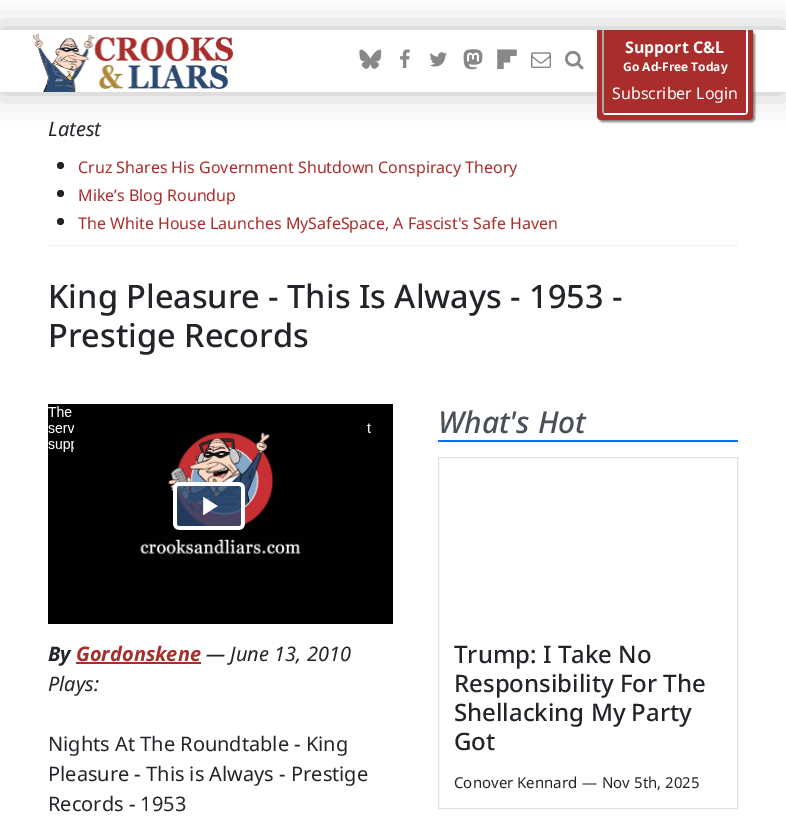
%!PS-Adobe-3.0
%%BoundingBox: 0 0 786 816
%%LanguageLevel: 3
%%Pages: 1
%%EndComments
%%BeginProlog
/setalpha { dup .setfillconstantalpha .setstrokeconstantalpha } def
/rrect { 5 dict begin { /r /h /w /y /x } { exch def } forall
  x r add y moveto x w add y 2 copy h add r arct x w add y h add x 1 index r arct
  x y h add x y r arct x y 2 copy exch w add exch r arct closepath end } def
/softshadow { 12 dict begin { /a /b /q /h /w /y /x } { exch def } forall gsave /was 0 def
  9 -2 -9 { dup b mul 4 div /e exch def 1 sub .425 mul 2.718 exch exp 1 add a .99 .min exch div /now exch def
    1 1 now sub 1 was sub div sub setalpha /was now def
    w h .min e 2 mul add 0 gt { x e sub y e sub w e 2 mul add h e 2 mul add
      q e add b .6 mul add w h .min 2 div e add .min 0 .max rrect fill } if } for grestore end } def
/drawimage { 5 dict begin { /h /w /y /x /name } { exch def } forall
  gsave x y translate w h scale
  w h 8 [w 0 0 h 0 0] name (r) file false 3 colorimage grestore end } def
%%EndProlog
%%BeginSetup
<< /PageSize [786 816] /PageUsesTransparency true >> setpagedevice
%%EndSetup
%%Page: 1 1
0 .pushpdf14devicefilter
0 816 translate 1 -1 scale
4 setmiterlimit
1 setgray
0 0 786 816 rectfill
gsave
newpath 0 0 moveto 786 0 lineto 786 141 lineto 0 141 lineto closepath 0 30 moveto 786 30 lineto 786 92 lineto 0 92 lineto closepath eoclip newpath
0 setgray
0 30 786 62 0 16 0.25 softshadow
grestore
(images/1.raw) 33 34 200 58 drawimage
(images/2.raw) 359 49 23 20 drawimage
(images/3.raw) 400 49 10 19 drawimage
(images/4.raw) 429 52 18 15 drawimage
(images/5.raw) 463 49 20 21 drawimage
(images/6.raw) 497 49 20 21 drawimage
(images/7.raw) 531 52 20 16 drawimage
(images/8.raw) 565 50 19 20 drawimage
0 setgray
599 32 156 90 4 1 0.5 softshadow
0.663 0.176 0.165 setrgbcolor
newpath 597 30 moveto 753 30 lineto 753 116 lineto 753 118 751 120 749 120 curveto 601 120 lineto 599 120 597 118 597 116 curveto closepath fill
1 setgray
newpath 748 30 moveto 746 30 lineto 746 111 lineto 745 112 lineto 747 114 lineto 748 111 lineto closepath fill
newpath 606 115 moveto 744 115 lineto 747 114 lineto 745 112 lineto 744 114 701 113 698 113 curveto 606 113 lineto 605 112 lineto 603 114 lineto closepath fill
0.667 setgray
newpath 602 30 moveto 604 30 lineto 604 111 lineto 605 112 lineto 603 114 lineto 602 111 lineto closepath fill
0.663 0.176 0.165 setrgbcolor
604 111 142 2 rectfill
0.871 0.886 0.902 setrgbcolor
[1 1] 0 setdash
newpath 48 245.5 moveto 738 245.5 lineto stroke
0.129 0.145 0.161 setrgbcolor
newpath 60.5 165.5 3.5 0 360 arc closepath fill
newpath 60.5 193.5 3.5 0 360 arc closepath fill
newpath 60.5 221.5 3.5 0 360 arc closepath fill
(images/9.raw) 48 404 345 220 drawimage
0.663 0.176 0.165 setrgbcolor
76 662 125 2 rectfill
0.051 0.431 0.992 setrgbcolor
438 440 300 2 rectfill
0.871 0.886 0.902 setrgbcolor
[] 0 setdash
438.5 457.5 299 351 rectstroke
/NotoSans-Bold [16 0 0 -16 0 0] selectfont
1 setgray
625 53 moveto (Support C&L) show
/NotoSans-Bold [12 0 0 -12 0 0] selectfont
623 71 moveto (Go Ad-Free Today) show
/NotoSans-Regular [16 0 0 -16 0 0] selectfont
612 99 moveto (Subscriber Login) show
/NotoSans-Italic [20 0 0 -20 0 0] selectfont
0.129 0.145 0.161 setrgbcolor
48 136 moveto (Latest) show
/NotoSans-Regular [16 0 0 -16 0 0] selectfont
0.663 0.176 0.165 setrgbcolor
78 173 moveto (Cruz Shares His Government Shutdown Conspiracy Theory) show
78 201 moveto (Mike’s Blog Roundup) show
78 229 moveto (The White House Launches MySafeSpace, A Fascist's Safe Haven) show
/NotoSans-Medium [32.4 0 0 -32.4 0 0] selectfont
0.129 0.145 0.161 setrgbcolor
48 308 moveto (King Pleasure - This Is Always - 1953 -) show
48 347 moveto (Prestige Records) show
/NotoSans-BoldItalic [20 0 0 -20 0 0] selectfont
48 661 moveto (By) show
0.663 0.176 0.165 setrgbcolor
76 661 moveto (Gordonskene) show
/NotoSans-Italic [20 0 0 -20 0 0] selectfont
0.129 0.145 0.161 setrgbcolor
206 661 moveto (— June 13, 2010) show
48 691 moveto (Plays:) show
/NotoSans-Regular [20 0 0 -20 0 0] selectfont
48 751 moveto (Nights At The Roundtable - King) show
48 781 moveto (Pleasure - This is Always - Prestige) show
48 811 moveto (Records - 1953) show
/NotoSans-MediumItalic [30 0 0 -30 0 0] selectfont
0.286 0.314 0.341 setrgbcolor
438 433 moveto (What's Hot) show
/NotoSans-Medium [24 0 0 -24 0 0] selectfont
0.129 0.145 0.161 setrgbcolor
454 663 moveto (Trump: I Take No) show
454 692 moveto (Responsibility For The) show
454 721 moveto (Shellacking My Party) show
454 750 moveto (Got) show
/NotoSans-Regular [15 0 0 -15 0 0] selectfont
454 788 moveto (Conover Kennard) show
582 788 moveto (—) show
602 788 moveto (Nov 5th, 2025) show
.poppdf14devicefilter showpage
%%EOF
